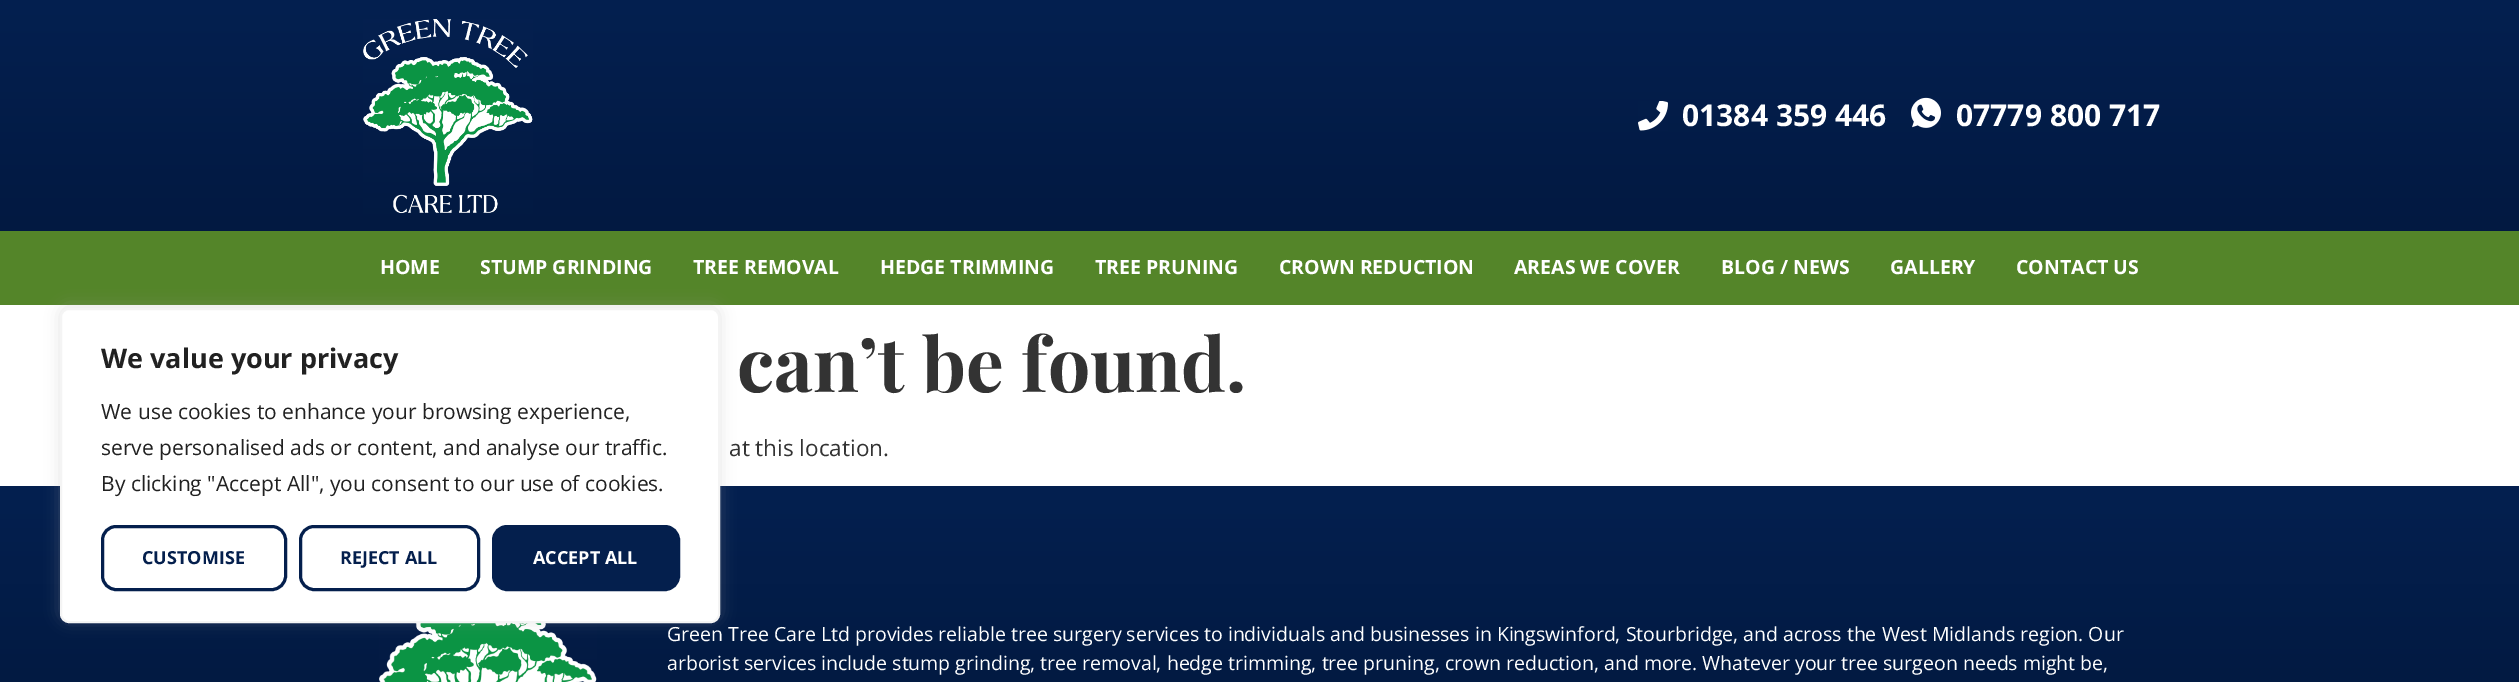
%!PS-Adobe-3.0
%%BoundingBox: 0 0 2519 682
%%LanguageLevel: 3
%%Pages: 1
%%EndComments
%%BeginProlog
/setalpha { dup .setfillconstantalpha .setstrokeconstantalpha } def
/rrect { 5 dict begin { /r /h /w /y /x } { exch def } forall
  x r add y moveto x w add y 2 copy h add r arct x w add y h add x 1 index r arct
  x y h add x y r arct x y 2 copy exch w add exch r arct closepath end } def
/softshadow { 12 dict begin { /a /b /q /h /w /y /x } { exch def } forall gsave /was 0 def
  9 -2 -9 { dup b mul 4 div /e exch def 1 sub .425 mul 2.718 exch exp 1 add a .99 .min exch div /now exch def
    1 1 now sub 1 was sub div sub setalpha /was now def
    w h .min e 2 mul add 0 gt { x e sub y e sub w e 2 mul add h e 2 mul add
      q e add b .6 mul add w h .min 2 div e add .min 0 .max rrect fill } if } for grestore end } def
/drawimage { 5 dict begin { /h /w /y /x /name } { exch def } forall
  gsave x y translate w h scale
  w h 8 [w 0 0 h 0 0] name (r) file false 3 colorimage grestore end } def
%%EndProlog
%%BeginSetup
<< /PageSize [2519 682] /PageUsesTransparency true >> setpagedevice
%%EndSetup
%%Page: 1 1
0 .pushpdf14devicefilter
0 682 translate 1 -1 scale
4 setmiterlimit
1 setgray
0 0 2519 682 rectfill
gsave newpath 0 0 moveto 2519 0 lineto 2519 231 lineto 0 231 lineto closepath clip newpath
<< /ShadingType 2 /ColorSpace /DeviceRGB /Coords [1260 0 1260 231] /Extend [true true] /Function << /FunctionType 2 /Domain [0 1] /C0 [0.016 0.125 0.314] /C1 [0.008 0.098 0.255] /N 1 >> >> shfill grestore
(images/1.raw) 363 19 170 195 drawimage
(images/2.raw) 1638 101 30 30 drawimage
(images/3.raw) 1911 97 30 31 drawimage
0.329 0.522 0.161 setrgbcolor
0 231 2519 74 rectfill
gsave newpath 0 486 moveto 2519 486 lineto 2519 682 lineto 0 682 lineto closepath clip newpath
<< /ShadingType 2 /ColorSpace /DeviceRGB /Coords [1260 486 1260 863] /Extend [true true] /Function << /FunctionType 2 /Domain [0 1] /C0 [0.016 0.125 0.314] /C1 [0.004 0.078 0.208] /N 1 >> >> shfill grestore
(images/4.raw) 379 623 218 59 drawimage
0.675 0.671 0.671 setrgbcolor
60 306 660 315 9 7.5 0.3 softshadow
1 setgray
61 309 658 313 8 rrect gsave fill grestore
0.957 setgray
2 setlinewidth
stroke
0.016 0.122 0.302 setrgbcolor
3 setlinewidth
102.5 526.5 183 63 13.5 rrect stroke
300.5 526.5 178 63 13.5 rrect stroke
493.5 526.5 185 63 13.5 rrect gsave fill grestore
stroke
/OpenSans-Bold [30 0 0 -30 0 0] selectfont
1 setgray
1682 126 moveto (01384 359 446) show
1956 126 moveto (07779 800 717) show
/OpenSans-Bold [19.5 0 0 -19.5 0 0] selectfont
380 274 moveto (HOME) show
480 274 moveto (STUMP GRINDING) show
693 274 moveto (TREE REMOVAL) show
880 274 moveto (HEDGE TRIMMING) show
1095 274 moveto (TREE PRUNING) show
1279 274 moveto (CROWN REDUCTION) show
1514 274 moveto (AREAS WE COVER) show
1721 274 moveto (BLOG / NEWS) show
1890 274 moveto (GALLERY) show
2016 274 moveto (CONTACT US) show
/OpenSans-Bold [27 0 0 -27 0 0] selectfont
0.129 setgray
101 368 moveto (We value your privacy) show
/OpenSans-Regular [21 0 0 -21 0 0] selectfont
101 419 moveto (We use cookies to enhance your browsing experience,) show
101 455 moveto (serve personalised ads or content, and analyse our traffic.) show
101 491 moveto (By clicking "Accept All", you consent to our use of cookies.) show
/OpenSans-Bold [18 0 0 -18 0 0] selectfont
0.016 0.122 0.302 setrgbcolor
142 564 moveto (CUSTOMISE) show
340 564 moveto (REJECT ALL) show
1 setgray
533 564 moveto (ACCEPT ALL) show
/PlayfairDisplay-Bold [75 0 0 -75 0 0] selectfont
0.2 setgray
737 392 moveto (can’t be found.) show
/OpenSans-Regular [22.5 0 0 -22.5 0 0] selectfont
729 456 moveto (at this location.) show
/OpenSans-Regular [19.5 0 0 -19.5 0 0] selectfont
1 setgray
667 641 moveto (Green Tree Care Ltd provides reliable tree surgery services to individuals and businesses in Kingswinford, Stourbridge, and across the West Midlands region. Our) show
667 670 moveto (arborist services include stump grinding, tree removal, hedge trimming, tree pruning, crown reduction, and more. Whatever your tree surgeon needs might be,) show
.poppdf14devicefilter showpage
%%EOF
